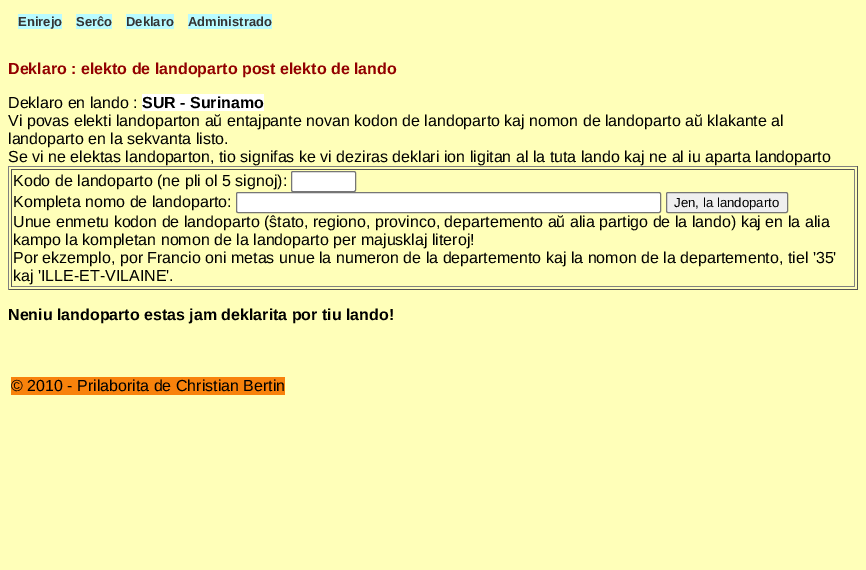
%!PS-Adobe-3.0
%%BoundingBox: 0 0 866 570
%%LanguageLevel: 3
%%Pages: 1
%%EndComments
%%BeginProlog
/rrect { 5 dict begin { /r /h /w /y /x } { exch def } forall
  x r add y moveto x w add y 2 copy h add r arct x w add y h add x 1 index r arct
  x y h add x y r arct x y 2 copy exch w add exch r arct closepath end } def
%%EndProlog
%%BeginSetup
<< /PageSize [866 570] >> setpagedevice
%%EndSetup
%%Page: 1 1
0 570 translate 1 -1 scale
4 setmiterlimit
1 1 0.725 setrgbcolor
0 0 866 570 rectfill
0.725 0.984 1 setrgbcolor
18 14 44 15 rectfill
76 14 36 15 rectfill
126 14 48 15 rectfill
188 14 84 15 rectfill
1 setgray
142 94 122 17 rectfill
0.502 setgray
8 166 850 1 rectfill
0.333 setgray
857 166 1 124 rectfill
8 289 850 1 rectfill
0.502 setgray
8 166 1 124 rectfill
0.333 setgray
11 169 844 1 rectfill
0.502 setgray
854 169 1 118 rectfill
11 286 844 1 rectfill
0.333 setgray
11 169 1 118 rectfill
1 setgray
291.5 171.5 64 20 1.5 rrect gsave fill grestore
0.463 setgray
stroke
1 setgray
236.5 192.5 424 20 1.5 rrect gsave fill grestore
0.463 setgray
stroke
0.937 setgray
666.5 192.5 121 20 1.5 rrect gsave fill grestore
0.463 setgray
stroke
0.973 0.51 0.047 setrgbcolor
11 377 274 18 rectfill
/LiberationSans-Bold [13 0 0 -13 0 0] selectfont
0.2 setgray
18 26 moveto (Enirejo) show
76 26 moveto (Serĉo) show
126 26 moveto (Deklaro) show
188 26 moveto (Administrado) show
/LiberationSans-Bold [16 0 0 -16 0 0] selectfont
0.573 0 0 setrgbcolor
8 74 moveto (Deklaro : elekto de landoparto post elekto de lando) show
/LiberationSans-Regular [16 0 0 -16 0 0] selectfont
0 setgray
8 108 moveto (Deklaro en lando :) show
/LiberationSans-Bold [16 0 0 -16 0 0] selectfont
142 108 moveto (SUR - Surinamo) show
/LiberationSans-Regular [16 0 0 -16 0 0] selectfont
8 126 moveto (Vi povas elekti landoparton aŭ entajpante novan kodon de landoparto kaj nomon de landoparto aŭ klakante al) show
8 144 moveto (landoparto en la sekvanta listo.) show
8 162 moveto (Se vi ne elektas landoparton, tio signifas ke vi deziras deklari ion ligitan al la tuta lando kaj ne al iu aparta landoparto) show
13 186 moveto (Kodo de landoparto \(ne pli ol 5 signoj\):) show
13 207 moveto (Kompleta nomo de landoparto:) show
/LiberationSans-Regular [13.25 0 0 -13.25 0 0] selectfont
674 207 moveto (Jen, la landoparto) show
/LiberationSans-Regular [16 0 0 -16 0 0] selectfont
13 227 moveto (Unue enmetu kodon de landoparto \(ŝtato, regiono, provinco, departemento aŭ alia partigo de la lando\) kaj en la alia) show
13 245 moveto (kampo la kompletan nomon de la landoparto per majusklaj literoj!) show
13 263 moveto (Por ekzemplo, por Francio oni metas unue la numeron de la departemento kaj la nomon de la departemento, tiel '35') show
13 281 moveto (kaj 'ILLE-ET-VILAINE'.) show
/LiberationSans-Bold [16 0 0 -16 0 0] selectfont
8 320 moveto (Neniu landoparto estas jam deklarita por tiu lando!) show
/LiberationSans-Regular [16 0 0 -16 0 0] selectfont
11 391 moveto (© 2010 - Prilaborita de Christian Bertin) show
showpage
%%EOF
